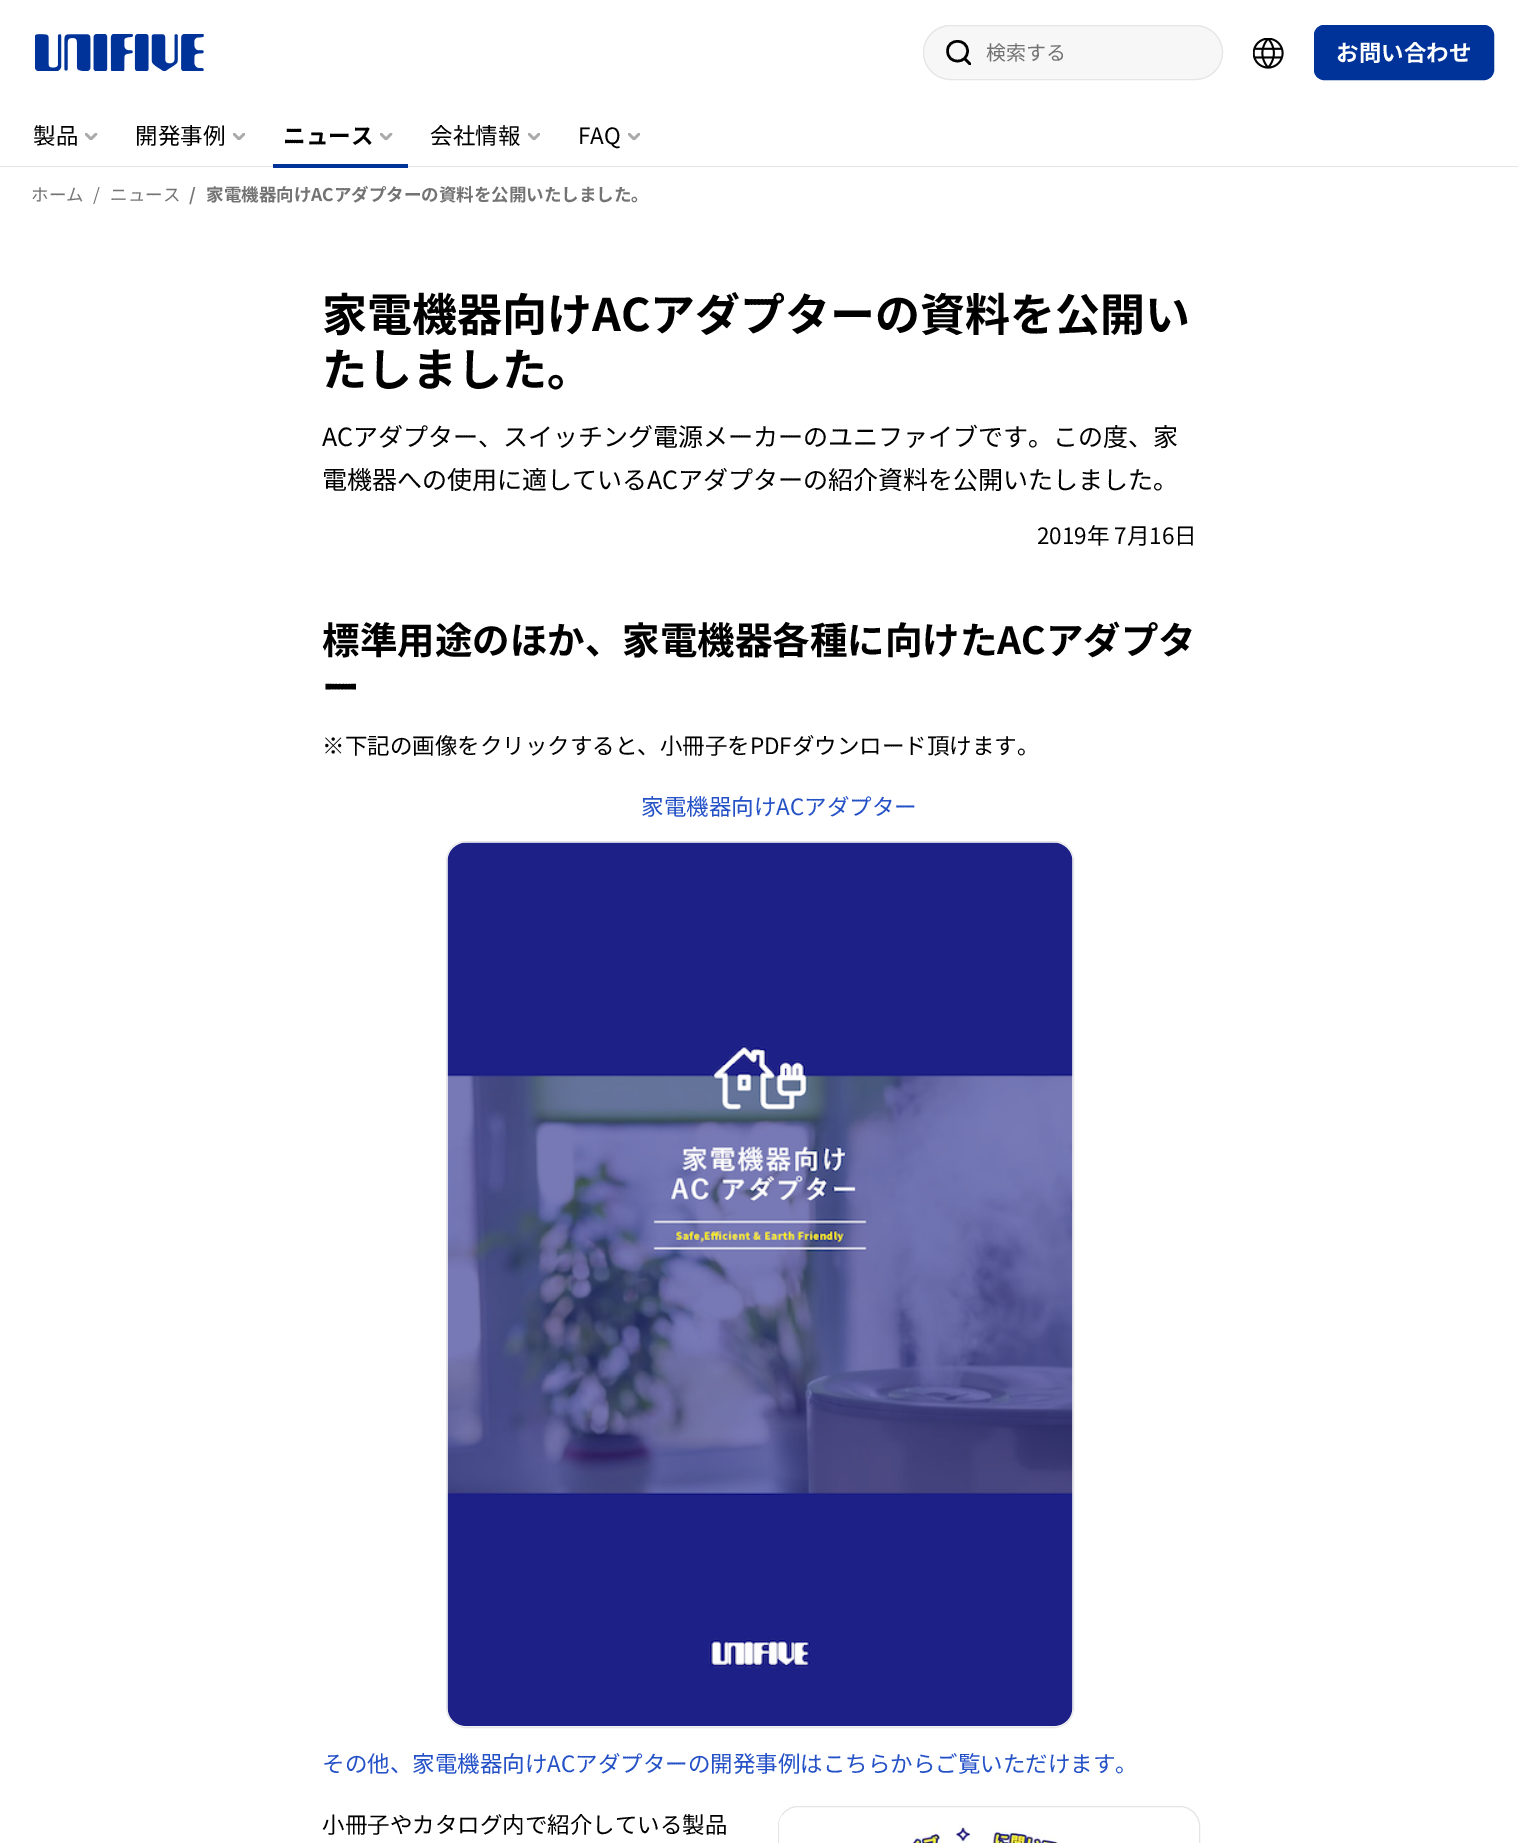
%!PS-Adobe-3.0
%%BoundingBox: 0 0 1518 1843
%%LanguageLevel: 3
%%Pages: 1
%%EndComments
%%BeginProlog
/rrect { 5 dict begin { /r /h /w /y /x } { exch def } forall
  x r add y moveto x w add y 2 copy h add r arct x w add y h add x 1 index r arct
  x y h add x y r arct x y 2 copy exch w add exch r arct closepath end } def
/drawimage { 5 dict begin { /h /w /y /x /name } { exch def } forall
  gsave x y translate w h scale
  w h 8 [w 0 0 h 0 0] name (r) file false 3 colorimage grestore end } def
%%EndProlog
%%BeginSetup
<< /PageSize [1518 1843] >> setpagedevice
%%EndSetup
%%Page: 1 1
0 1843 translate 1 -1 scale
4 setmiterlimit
1 setgray
0 0 1518 1843 rectfill
(images/1.raw) 35 34 169 37 drawimage
0.969 setgray
923.5 25.5 299 54 27 rrect gsave fill grestore
0.898 setgray
stroke
gsave
946 40 25 25 rectclip
0 setgray
2.5 setlinewidth
1 setlinecap
1 setlinejoin
newpath 970 64 moveto 964.5 58.5 lineto 967.5 51 moveto 967.5 64.5 947.5 64.5 947.5 51 curveto 947.5 38 967.5 38 967.5 51 curveto closepath stroke
grestore
(images/2.raw) 1253 38 31 31 drawimage
0 0.2 0.604 setrgbcolor
1314.5 25.5 179 54 9.5 rrect gsave fill grestore
stroke
gsave
85 133 13 7 rectclip
0.667 setgray
2.5 setlinewidth
1 setlinecap
1 setlinejoin
newpath 86 134 moveto 91 139 lineto 96 134 lineto stroke
grestore
gsave
233 133 12 7 rectclip
0.667 setgray
2.5 setlinewidth
1 setlinecap
1 setlinejoin
newpath 234 134 moveto 239 139 lineto 244 134 lineto stroke
grestore
0.898 setgray
0 166 1518 1 rectfill
0 0.2 0.604 setrgbcolor
273 164 135 4 rectfill
gsave
380 133 13 7 rectclip
0.667 setgray
2.5 setlinewidth
1 setlinecap
1 setlinejoin
newpath 381 134 moveto 386 139 lineto 391 134 lineto stroke
grestore
gsave
528 133 12 7 rectclip
0.667 setgray
2.5 setlinewidth
1 setlinecap
1 setlinejoin
newpath 529 134 moveto 534 139 lineto 539 134 lineto stroke
grestore
gsave
628 133 12 7 rectclip
0.667 setgray
2.5 setlinewidth
1 setlinecap
1 setlinejoin
newpath 629 134 moveto 634 139 lineto 639 134 lineto stroke
grestore
0.898 setgray
446.5 841.5 627 886 19.5 rrect stroke
(images/3.raw) 447 842 626 885 drawimage
778.5 1806.5 421 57 19.5 rrect stroke
(images/4.raw) 779 1815 279 28 drawimage
/NotoSansJP-Regular [20 0 0 -20 0 0] selectfont
0.451 setgray
986 60 moveto (検索する) show
/NotoSansJP-Bold [22.5 0 0 -22.5 0 0] selectfont
1 setgray
1336 61 moveto (お問い合わせ) show
/NotoSansJP-Regular [22.5 0 0 -22.5 0 0] selectfont
0 setgray
33 144 moveto (製品) show
135 144 moveto (開発事例) show
/NotoSansJP-Bold [22.5 0 0 -22.5 0 0] selectfont
283 144 moveto (ニュース) show
/NotoSansJP-Regular [22.5 0 0 -22.5 0 0] selectfont
430 144 moveto (会社情報) show
578 144 moveto (FAQ) show
/NotoSansJP-Regular [17.5 0 0 -17.5 0 0] selectfont
0.451 setgray
31 201 moveto (ホーム) show
93 201 moveto (/) show
110 201 moveto (ニュース) show
/NotoSansJP-Bold [17.5 0 0 -17.5 0 0] selectfont
189 201 moveto (/) show
206 201 moveto (家電機器向けACアダプターの資料を公開いたしました。) show
/NotoSansJP-Bold [45 0 0 -45 0 0] selectfont
0 setgray
322 331 moveto (家電機器向けACアダプターの資料を公開い) show
322 386 moveto (たしました。) show
/NotoSansJP-Regular [25 0 0 -25 0 0] selectfont
322 446 moveto (ACアダプター、スイッチング電源メーカーのユニファイブです。この度、家) show
322 489 moveto (電機器への使用に適しているACアダプターの紹介資料を公開いたしました。) show
/NotoSansJP-Regular [22.5 0 0 -22.5 0 0] selectfont
1037 544 moveto (2019年 7月16日) show
/NotoSansJP-Bold [37.5 0 0 -37.5 0 0] selectfont
322 654 moveto (標準用途のほか、家電機器各種に向けたACアダプタ) show
322 701 moveto (ー) show
/NotoSansJP-Regular [22.5 0 0 -22.5 0 0] selectfont
322 754 moveto (※下記の画像をクリックすると、小冊子をPDFダウンロード頂けます。) show
0.141 0.318 0.776 setrgbcolor
641 815 moveto (家電機器向けACアダプター) show
322 1772 moveto (その他、家電機器向けACアダプターの開発事例はこちらからご覧いただけます。) show
0 setgray
322 1833 moveto (小冊子やカタログ内で紹介している製品) show
showpage
%%EOF
